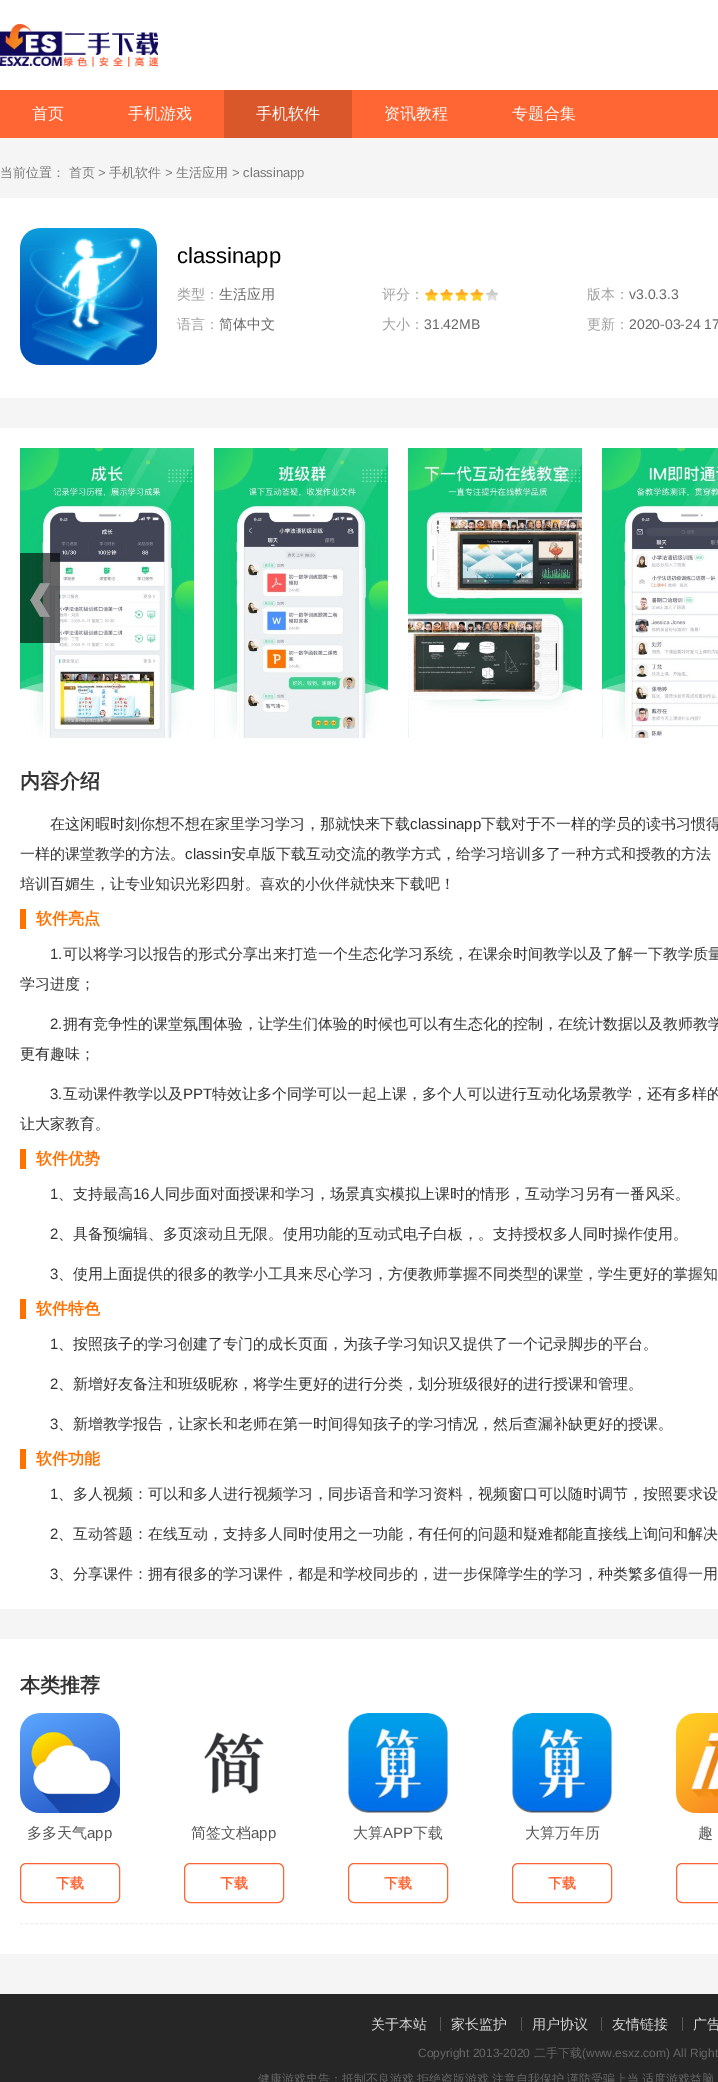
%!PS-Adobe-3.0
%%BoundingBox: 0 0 718 2082
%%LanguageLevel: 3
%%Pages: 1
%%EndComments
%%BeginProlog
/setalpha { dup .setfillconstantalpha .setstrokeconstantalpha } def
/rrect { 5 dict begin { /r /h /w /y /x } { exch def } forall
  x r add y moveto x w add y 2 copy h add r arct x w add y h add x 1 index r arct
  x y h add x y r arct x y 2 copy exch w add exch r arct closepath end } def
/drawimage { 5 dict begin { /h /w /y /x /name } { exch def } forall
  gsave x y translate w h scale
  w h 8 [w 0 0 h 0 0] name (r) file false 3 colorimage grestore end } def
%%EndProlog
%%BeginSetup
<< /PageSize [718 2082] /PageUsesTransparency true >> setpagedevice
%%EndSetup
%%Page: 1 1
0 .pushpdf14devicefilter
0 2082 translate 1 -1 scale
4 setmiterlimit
0.961 setgray
0 0 718 2082 rectfill
1 setgray
0 0 718 90 rectfill
(images/1.raw) 0 24 158 43 drawimage
1 0.4 0.2 setrgbcolor
0 90 718 48 rectfill
0.851 0.341 0.169 setrgbcolor
224 90 128 48 rectfill
1 setgray
0 198 718 200 rectfill
(images/2.raw) 20 228 137 137 drawimage
(images/3.raw) 425 289 73 12 drawimage
0 428 718 1181 rectfill
(images/4.raw) 20 448 174 290 drawimage
(images/5.raw) 214 448 174 290 drawimage
(images/6.raw) 408 448 174 290 drawimage
(images/7.raw) 602 448 116 290 drawimage
0.6 setalpha
0 setgray
20 553 40 90 rectfill
1 setalpha
(images/8.raw) 30 583 20 34 drawimage
1 0.447 0 setrgbcolor
20 909 6 20 rectfill
20 1149 6 20 rectfill
20 1299 6 20 rectfill
20 1449 6 20 rectfill
1 setgray
0 1639 718 315 rectfill
0.929 0.937 0.961 setrgbcolor
[3 2.01] 0 setdash
newpath 20 1923.5 moveto 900 1923.5 lineto stroke
(images/9.raw) 20 1713 100 100 drawimage
1 0.4 0.2 setrgbcolor
[] 0 setdash
20.5 1863.5 99 39 5.5 rrect stroke
(images/10.raw) 204 1732 60 62 drawimage
184.5 1863.5 99 39 5.5 rrect stroke
(images/11.raw) 348 1713 100 100 drawimage
348.5 1863.5 99 39 5.5 rrect stroke
(images/12.raw) 512 1713 100 100 drawimage
512.5 1863.5 99 39 5.5 rrect stroke
(images/13.raw) 676 1713 42 100 drawimage
676.5 1863.5 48 39 5.5 rrect stroke
0.149 setgray
0 1994 718 88 rectfill
0.337 setgray
440 2017 1 14 rectfill
521 2017 1 14 rectfill
601 2017 1 14 rectfill
682 2017 1 14 rectfill
/WenQuanYiZenHei-Medium [16 0 0 -16 0 0] selectfont
1 setgray
32 119 moveto (首页) show
128 119 moveto (手机游戏) show
256 119 moveto (手机软件) show
384 119 moveto (资讯教程) show
512 119 moveto (专题合集) show
/WenQuanYiZenHei-Medium [13 0 0 -13 0 0] selectfont
0.475 setgray
0 177 moveto (当前位置： 首页) show
/LiberationSans-Regular [13 0 0 -13 0 0] selectfont
98 177 moveto (>) show
/WenQuanYiZenHei-Medium [13 0 0 -13 0 0] selectfont
109 177 moveto (手机软件) show
/LiberationSans-Regular [13 0 0 -13 0 0] selectfont
165 177 moveto (>) show
/WenQuanYiZenHei-Medium [13 0 0 -13 0 0] selectfont
176 177 moveto (生活应用) show
/LiberationSans-Regular [13 0 0 -13 0 0] selectfont
232 177 moveto (> classinapp) show
/LiberationSans-Regular [22 0 0 -22 0 0] selectfont
0 setgray
177 263 moveto (classinapp) show
/WenQuanYiZenHei-Medium [14 0 0 -14 0 0] selectfont
0.62 setgray
177 299 moveto (类型：) show
0.4 setgray
219 299 moveto (生活应用) show
0.62 setgray
382 299 moveto (评分：) show
587 299 moveto (版本：) show
/LiberationSans-Regular [14 0 0 -14 0 0] selectfont
0.4 setgray
629 299 moveto (v3.0.3.3) show
/WenQuanYiZenHei-Medium [14 0 0 -14 0 0] selectfont
0.62 setgray
177 329 moveto (语言：) show
0.4 setgray
219 329 moveto (简体中文) show
0.62 setgray
382 329 moveto (大小：) show
/LiberationSans-Regular [14 0 0 -14 0 0] selectfont
0.4 setgray
424 329 moveto (31.42MB) show
/WenQuanYiZenHei-Medium [14 0 0 -14 0 0] selectfont
0.62 setgray
587 329 moveto (更新：) show
/LiberationSans-Regular [14 0 0 -14 0 0] selectfont
0.4 setgray
629 329 moveto (2020-03-24 17) show
/WenQuanYiZenHei-Bold [20 0 0 -20 0 0] selectfont
0.2 setgray
20 788 moveto (内容介绍) show
/WenQuanYiZenHei-Medium [15 0 0 -15 0 0] selectfont
50 829 moveto (在这闲暇时刻你想不想在家里学习学习，那就快来下载) show
/LiberationSans-Regular [15 0 0 -15 0 0] selectfont
410 829 moveto (classinapp) show
/WenQuanYiZenHei-Medium [15 0 0 -15 0 0] selectfont
481 829 moveto (下载对于不一样的学员的读书习惯得) show
20 859 moveto (一样的课堂教学的方法。) show
/LiberationSans-Regular [15 0 0 -15 0 0] selectfont
185 859 moveto (classin) show
/WenQuanYiZenHei-Medium [15 0 0 -15 0 0] selectfont
231 859 moveto (安卓版下载互动交流的教学方式，给学习培训多了一种方式和授教的方法) show
20 889 moveto (培训百媚生，让专业知识光彩四射。喜欢的小伙伴就快来下载吧！) show
/WenQuanYiZenHei-Bold [16 0 0 -16 0 0] selectfont
1 0.447 0 setrgbcolor
36 924 moveto (软件亮点) show
/LiberationSans-Regular [15 0 0 -15 0 0] selectfont
0.2 setgray
50 959 moveto (1.) show
/WenQuanYiZenHei-Medium [15 0 0 -15 0 0] selectfont
63 959 moveto (可以将学习以报告的形式分享出来打造一个生态化学习系统，在课余时间教学以及了解一下教学质量) show
20 989 moveto (学习进度；) show
/LiberationSans-Regular [15 0 0 -15 0 0] selectfont
50 1029 moveto (2.) show
/WenQuanYiZenHei-Medium [15 0 0 -15 0 0] selectfont
63 1029 moveto (拥有竞争性的课堂氛围体验，让学生们体验的时候也可以有生态化的控制，在统计数据以及教师教学) show
20 1059 moveto (更有趣味；) show
/LiberationSans-Regular [15 0 0 -15 0 0] selectfont
50 1099 moveto (3.) show
/WenQuanYiZenHei-Medium [15 0 0 -15 0 0] selectfont
63 1099 moveto (互动课件教学以及) show
/LiberationSans-Regular [15 0 0 -15 0 0] selectfont
183 1099 moveto (PPT) show
/WenQuanYiZenHei-Medium [15 0 0 -15 0 0] selectfont
212 1099 moveto (特效让多个同学可以一起上课，多个人可以进行互动化场景教学，还有多样的) show
20 1129 moveto (让大家教育。) show
/WenQuanYiZenHei-Bold [16 0 0 -16 0 0] selectfont
1 0.447 0 setrgbcolor
36 1164 moveto (软件优势) show
/LiberationSans-Regular [15 0 0 -15 0 0] selectfont
0.2 setgray
50 1199 moveto (1) show
/WenQuanYiZenHei-Medium [15 0 0 -15 0 0] selectfont
58 1199 moveto (、支持最高) show
/LiberationSans-Regular [15 0 0 -15 0 0] selectfont
133 1199 moveto (16) show
/WenQuanYiZenHei-Medium [15 0 0 -15 0 0] selectfont
150 1199 moveto (人同步面对面授课和学习，场景真实模拟上课时的情形，互动学习另有一番风采。) show
/LiberationSans-Regular [15 0 0 -15 0 0] selectfont
50 1239 moveto (2) show
/WenQuanYiZenHei-Medium [15 0 0 -15 0 0] selectfont
58 1239 moveto (、具备预编辑、多页滚动且无限。使用功能的互动式电子白板，。支持授权多人同时操作使用。) show
/LiberationSans-Regular [15 0 0 -15 0 0] selectfont
50 1279 moveto (3) show
/WenQuanYiZenHei-Medium [15 0 0 -15 0 0] selectfont
58 1279 moveto (、使用上面提供的很多的教学小工具来尽心学习，方便教师掌握不同类型的课堂，学生更好的掌握知) show
/WenQuanYiZenHei-Bold [16 0 0 -16 0 0] selectfont
1 0.447 0 setrgbcolor
36 1314 moveto (软件特色) show
/LiberationSans-Regular [15 0 0 -15 0 0] selectfont
0.2 setgray
50 1349 moveto (1) show
/WenQuanYiZenHei-Medium [15 0 0 -15 0 0] selectfont
58 1349 moveto (、按照孩子的学习创建了专门的成长页面，为孩子学习知识又提供了一个记录脚步的平台。) show
/LiberationSans-Regular [15 0 0 -15 0 0] selectfont
50 1389 moveto (2) show
/WenQuanYiZenHei-Medium [15 0 0 -15 0 0] selectfont
58 1389 moveto (、新增好友备注和班级昵称，将学生更好的进行分类，划分班级很好的进行授课和管理。) show
/LiberationSans-Regular [15 0 0 -15 0 0] selectfont
50 1429 moveto (3) show
/WenQuanYiZenHei-Medium [15 0 0 -15 0 0] selectfont
58 1429 moveto (、新增教学报告，让家长和老师在第一时间得知孩子的学习情况，然后查漏补缺更好的授课。) show
/WenQuanYiZenHei-Bold [16 0 0 -16 0 0] selectfont
1 0.447 0 setrgbcolor
36 1464 moveto (软件功能) show
/LiberationSans-Regular [15 0 0 -15 0 0] selectfont
0.2 setgray
50 1499 moveto (1) show
/WenQuanYiZenHei-Medium [15 0 0 -15 0 0] selectfont
58 1499 moveto (、多人视频：可以和多人进行视频学习，同步语音和学习资料，视频窗口可以随时调节，按照要求设) show
/LiberationSans-Regular [15 0 0 -15 0 0] selectfont
50 1539 moveto (2) show
/WenQuanYiZenHei-Medium [15 0 0 -15 0 0] selectfont
58 1539 moveto (、互动答题：在线互动，支持多人同时使用之一功能，有任何的问题和疑难都能直接线上询问和解决) show
/LiberationSans-Regular [15 0 0 -15 0 0] selectfont
50 1579 moveto (3) show
/WenQuanYiZenHei-Medium [15 0 0 -15 0 0] selectfont
58 1579 moveto (、分享课件：拥有很多的学习课件，都是和学校同步的，进一步保障学生的学习，种类繁多值得一用) show
/WenQuanYiZenHei-Bold [20 0 0 -20 0 0] selectfont
20 1692 moveto (本类推荐) show
/WenQuanYiZenHei-Medium [15 0 0 -15 0 0] selectfont
0.337 setgray
27 1838 moveto (多多天气) show
/LiberationSans-Regular [15 0 0 -15 0 0] selectfont
87 1838 moveto (app) show
/WenQuanYiZenHei-Bold [14 0 0 -14 0 0] selectfont
1 0.4 0.2 setrgbcolor
56 1888 moveto (下载) show
/WenQuanYiZenHei-Medium [15 0 0 -15 0 0] selectfont
0.337 setgray
191 1838 moveto (简签文档) show
/LiberationSans-Regular [15 0 0 -15 0 0] selectfont
251 1838 moveto (app) show
/WenQuanYiZenHei-Bold [14 0 0 -14 0 0] selectfont
1 0.4 0.2 setrgbcolor
220 1888 moveto (下载) show
/WenQuanYiZenHei-Medium [15 0 0 -15 0 0] selectfont
0.337 setgray
353 1838 moveto (大算) show
/LiberationSans-Regular [15 0 0 -15 0 0] selectfont
383 1838 moveto (APP) show
/WenQuanYiZenHei-Medium [15 0 0 -15 0 0] selectfont
413 1838 moveto (下载) show
/WenQuanYiZenHei-Bold [14 0 0 -14 0 0] selectfont
1 0.4 0.2 setrgbcolor
384 1888 moveto (下载) show
/WenQuanYiZenHei-Medium [15 0 0 -15 0 0] selectfont
0.337 setgray
525 1838 moveto (大算万年历) show
/WenQuanYiZenHei-Bold [14 0 0 -14 0 0] selectfont
1 0.4 0.2 setrgbcolor
548 1888 moveto (下载) show
/WenQuanYiZenHei-Medium [15 0 0 -15 0 0] selectfont
0.337 setgray
698 1838 moveto (趣) show
/WenQuanYiZenHei-Medium [14 0 0 -14 0 0] selectfont
0.843 setgray
371 2029 moveto (关于本站) show
451 2029 moveto (家长监护) show
532 2029 moveto (用户协议) show
612 2029 moveto (友情链接) show
693 2029 moveto (广告) show
/LiberationSans-Regular [12 0 0 -12 0 0] selectfont
0.4 setgray
418 2057 moveto (Copyright 2013-2020) show
/WenQuanYiZenHei-Medium [12 0 0 -12 0 0] selectfont
534 2057 moveto (二手下载) show
/LiberationSans-Regular [12 0 0 -12 0 0] selectfont
582 2057 moveto (\(www.esxz.com\) All Right) show
/WenQuanYiZenHei-Medium [12 0 0 -12 0 0] selectfont
258 2083 moveto -0.5 0 32 (健康游戏忠告：抵制不良游戏 拒绝盗版游戏 注意自我保护 谨防受骗上当 适度游戏益脑) widthshow
.poppdf14devicefilter showpage
%%EOF
